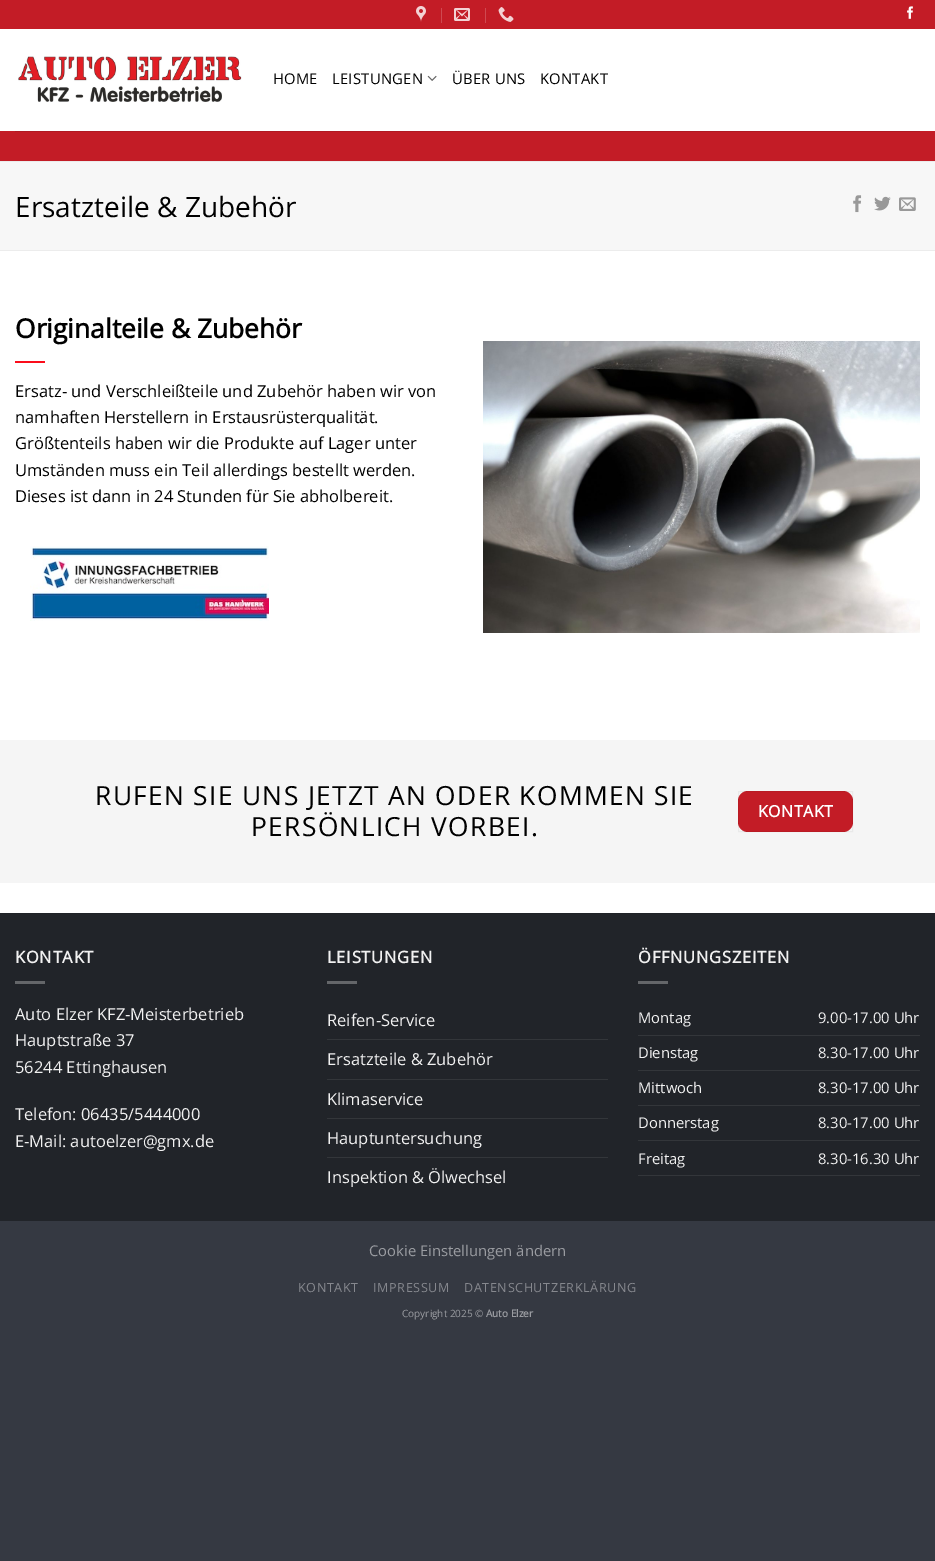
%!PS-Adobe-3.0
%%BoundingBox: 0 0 935 1561
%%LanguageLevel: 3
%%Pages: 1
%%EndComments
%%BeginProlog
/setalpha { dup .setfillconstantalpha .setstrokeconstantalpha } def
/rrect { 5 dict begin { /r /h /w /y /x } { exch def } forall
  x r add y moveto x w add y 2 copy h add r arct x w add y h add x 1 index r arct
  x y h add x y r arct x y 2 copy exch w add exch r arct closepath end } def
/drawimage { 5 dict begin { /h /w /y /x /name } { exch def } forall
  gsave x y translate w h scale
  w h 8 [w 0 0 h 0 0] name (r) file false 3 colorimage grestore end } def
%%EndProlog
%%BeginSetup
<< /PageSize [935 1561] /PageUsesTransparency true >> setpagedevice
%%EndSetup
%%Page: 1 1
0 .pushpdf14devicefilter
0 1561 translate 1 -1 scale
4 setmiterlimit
0.208 0.224 0.259 setrgbcolor
0 0 935 1561 rectfill
1 setgray
0 29 935 884 rectfill
0.765 0.11 0.149 setrgbcolor
0 0 935 29 rectfill
(images/1.raw) 416 6 10 16 drawimage
0.812 0.286 0.318 setrgbcolor
441 8 1 15 rectfill
(images/2.raw) 454 8 16 13 drawimage
485 8 1 15 rectfill
(images/3.raw) 498 7 16 15 drawimage
(images/4.raw) 907 6 6 13 drawimage
(images/5.raw) 18 56 224 46 drawimage
(images/6.raw) 427 75 10 6 drawimage
0.765 0.11 0.149 setrgbcolor
0 131 935 30 rectfill
0.69 0.098 0.133 setrgbcolor
15 131 905 1 rectfill
0.969 setgray
0 162 935 88 rectfill
0.925 setgray
0 161 935 1 rectfill
0 250 935 1 rectfill
(images/7.raw) 853 195 9 18 drawimage
(images/8.raw) 874 196 17 15 drawimage
(images/9.raw) 899 197 17 14 drawimage
0.984 0.051 0.106 setrgbcolor
15 361 30 2 rectfill
(images/10.raw) 30 546 239 75 drawimage
(images/11.raw) 483 341 437 292 drawimage
0.961 setgray
0 740 935 143 rectfill
0.765 0.11 0.149 setrgbcolor
738 791 115 41 10 rrect fill
0.05 setalpha
0 setgray
738.5 791.5 114 40 rectstroke
1 setalpha
0.129 0.141 0.161 setrgbcolor
0 914 935 307 rectfill
0.122 0.133 0.153 setrgbcolor
0 913 935 1 rectfill
0.392 0.4 0.412 setrgbcolor
15 981 30 3 rectfill
327 981 30 3 rectfill
0.2 0.212 0.227 setrgbcolor
327 1039 281 1 rectfill
327 1079 281 1 rectfill
327 1118 281 1 rectfill
327 1157 281 1 rectfill
0.392 0.4 0.412 setrgbcolor
638 981 30 3 rectfill
0.2 0.212 0.227 setrgbcolor
638 1035 282 1 rectfill
638 1070 282 1 rectfill
638 1105 282 1 rectfill
638 1140 282 1 rectfill
638 1175 282 1 rectfill
/OpenSans-Regular [14.8 0 0 -14.8 0 0] selectfont
0 setgray
273 84 moveto 0.25 0 (HOME) ashow
332 84 moveto 0.25 0 (LEISTUNGEN) ashow
452 84 moveto 0.25 0 (ÜBER UNS) ashow
540 84 moveto 0.25 0 (KONTAKT) ashow
/OpenSans-Regular [28 0 0 -28 0 0] selectfont
15 217 moveto (Ersatzteile & Zubehör) show
/OpenSans-Bold [26.4 0 0 -26.4 0 0] selectfont
15 338 moveto (Originalteile & Zubehör) show
/OpenSans-Regular [16.5 0 0 -16.5 0 0] selectfont
15 397 moveto (Ersatz- und Verschleißteile und Zubehör haben wir von) show
15 423 moveto (namhaften Herstellern in Erstausrüsterqualität.) show
15 449 moveto (Größtenteils haben wir die Produkte auf Lager unter) show
15 476 moveto (Umständen muss ein Teil allerdings bestellt werden.) show
15 502 moveto (Dieses ist dann in 24 Stunden für Sie abholbereit.) show
/OpenSans-Regular [26.4 0 0 -26.4 0 0] selectfont
95 805 moveto 1.3 0 (RUFEN SIE UNS JETZT AN ODER KOMMEN SIE) ashow
251 836 moveto 1.3 0 (PERSÖNLICH VORBEI.) ashow
/OpenSans-Bold [16 0 0 -16 0 0] selectfont
1 setgray
758 817 moveto 0.5 0 (KONTAKT) ashow
/OpenSans-Bold [16.5 0 0 -16.5 0 0] selectfont
0.945 setgray
15 963 moveto 0.75 0 (KONTAKT) ashow
/OpenSans-Regular [16.5 0 0 -16.5 0 0] selectfont
15 1020 moveto (Auto Elzer KFZ-Meisterbetrieb) show
15 1046 moveto (Hauptstraße 37) show
15 1073 moveto (56244 Ettinghausen) show
15 1120 moveto (Telefon: 06435/5444000) show
15 1147 moveto (E-Mail: autoelzer@gmx.de) show
/OpenSans-Bold [16.5 0 0 -16.5 0 0] selectfont
327 963 moveto 0.75 0 (LEISTUNGEN) ashow
/OpenSans-Regular [16.5 0 0 -16.5 0 0] selectfont
327 1026 moveto (Reifen-Service) show
327 1065 moveto (Ersatzteile & Zubehör) show
327 1105 moveto (Klimaservice) show
327 1144 moveto (Hauptuntersuchung) show
327 1183 moveto (Inspektion & Ölwechsel) show
/OpenSans-Bold [16.5 0 0 -16.5 0 0] selectfont
638 963 moveto 0.75 0 (ÖFFNUNGSZEITEN) ashow
/OpenSans-Regular [14.8 0 0 -14.8 0 0] selectfont
638 1023 moveto (Montag) show
818 1023 moveto (9.00-17.00 Uhr) show
638 1058 moveto (Dienstag) show
818 1058 moveto (8.30-17.00 Uhr) show
638 1093 moveto (Mittwoch) show
818 1093 moveto (8.30-17.00 Uhr) show
638 1128 moveto (Donnerstag) show
818 1128 moveto (8.30-17.00 Uhr) show
638 1164 moveto (Freitag) show
818 1164 moveto (8.30-16.30 Uhr) show
0.604 0.612 0.631 setrgbcolor
369 1256 moveto (Cookie Einstellungen ändern) show
/OpenSans-Regular [12.6 0 0 -12.6 0 0] selectfont
0.525 0.533 0.557 setrgbcolor
298 1292 moveto 0.6 0 (KONTAKT) ashow
373 1292 moveto 0.6 0 (IMPRESSUM) ashow
464 1292 moveto 0.6 0 (DATENSCHUTZERKLÄRUNG) ashow
/OpenSans-Regular [10 0 0 -10 0 0] selectfont
0.604 0.612 0.631 setrgbcolor
402 1317 moveto (Copyright 2025 ©) show
/OpenSans-Bold [10 0 0 -10 0 0] selectfont
486 1317 moveto (Auto Elzer) show
.poppdf14devicefilter showpage
%%EOF
